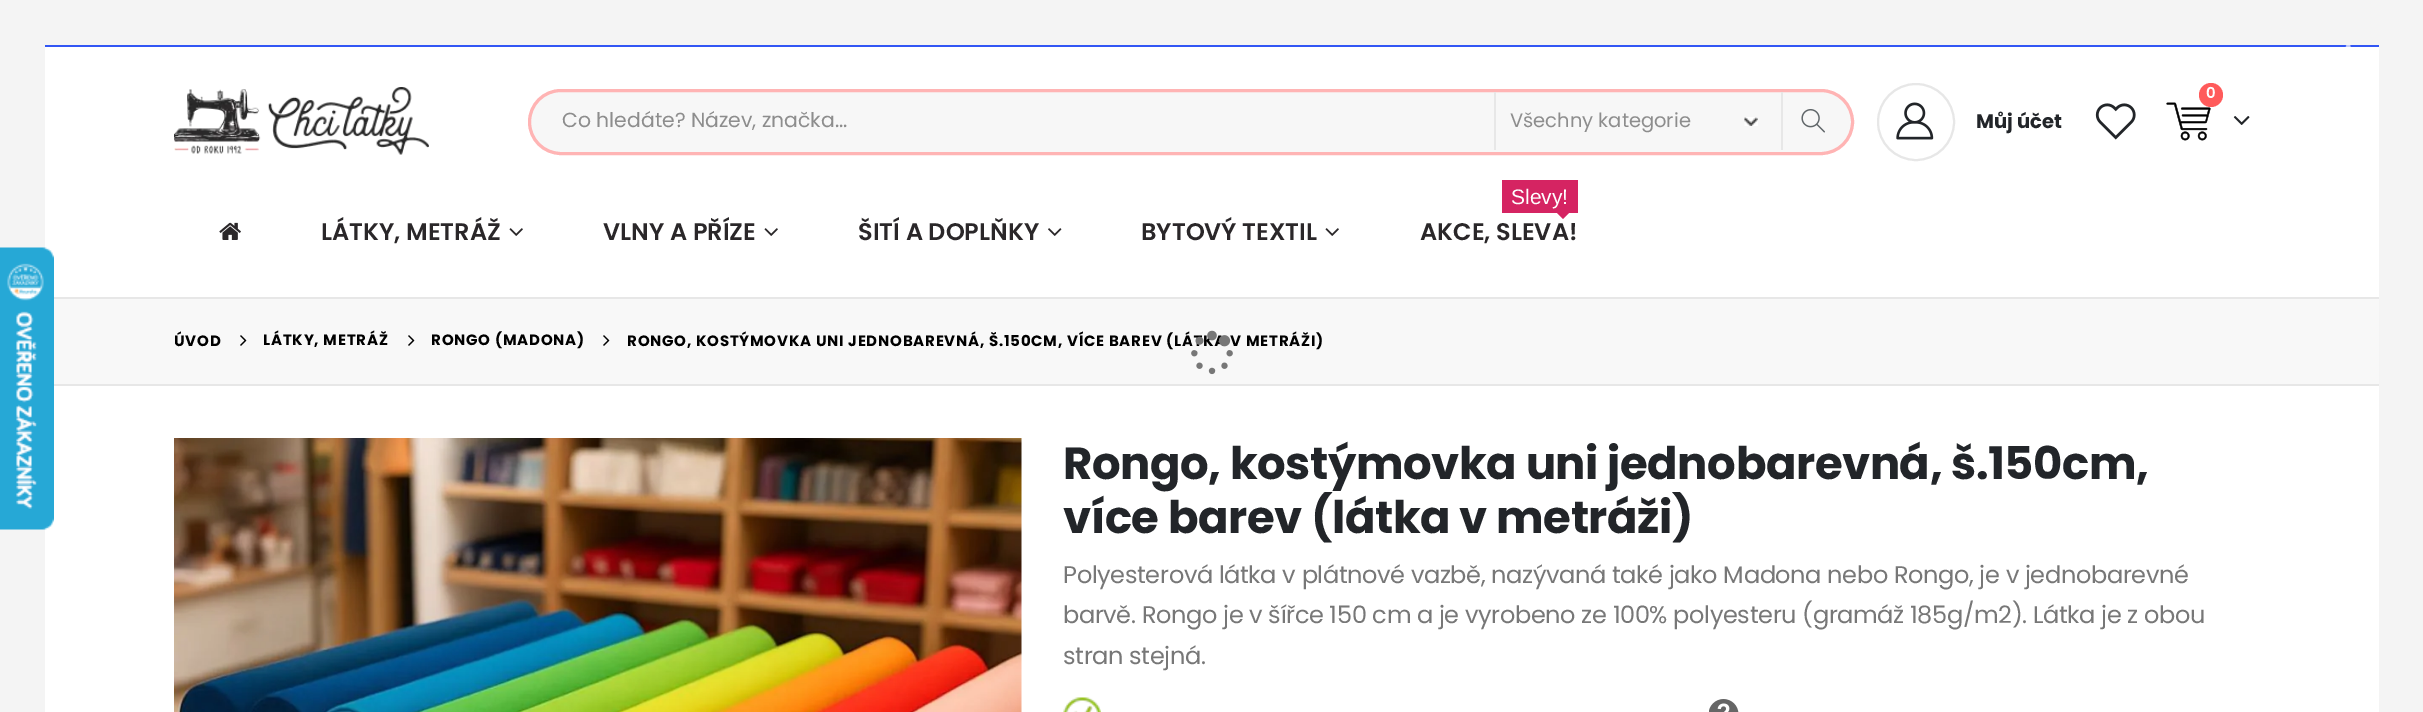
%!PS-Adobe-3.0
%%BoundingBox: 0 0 2423 712
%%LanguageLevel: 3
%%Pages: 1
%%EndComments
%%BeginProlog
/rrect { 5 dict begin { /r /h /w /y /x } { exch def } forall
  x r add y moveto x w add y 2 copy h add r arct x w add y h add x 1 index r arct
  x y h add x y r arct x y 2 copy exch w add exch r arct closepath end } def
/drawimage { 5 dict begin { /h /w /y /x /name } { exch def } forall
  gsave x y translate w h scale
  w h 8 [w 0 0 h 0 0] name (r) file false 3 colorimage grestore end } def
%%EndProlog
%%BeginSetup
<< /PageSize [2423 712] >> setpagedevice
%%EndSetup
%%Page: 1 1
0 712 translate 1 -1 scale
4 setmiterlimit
0.957 setgray
0 0 2423 712 rectfill
1 setgray
45 47 2334 665 rectfill
(images/1.raw) 0 247 54 283 drawimage
0.196 0.337 0.957 setrgbcolor
45 45 2334 2 rectfill
gsave
45 45 2334 2 rectclip
0.761 0.8 0.988 setrgbcolor
newpath 2340 36 moveto 2358 54 lineto 2356.5 55.5 lineto 2338.5 37.5 lineto closepath fill
newpath 2356.5 36 moveto 2358 37.5 lineto 2340 55.5 lineto 2338.5 54 lineto closepath fill
grestore
(images/2.raw) 174 87 255 68 drawimage
0.969 setgray
529.5 90.5 1323 63 31.5 rrect gsave fill grestore
1 0.706 0.706 setrgbcolor
3 setlinewidth
stroke
0.906 setgray
1781 92 2 58 rectfill
1494 92 2 58 rectfill
(images/3.raw) 1744 117 14 9 drawimage
(images/4.raw) 1801 109 24 24 drawimage
(images/5.raw) 2166 102 45 39 drawimage
1 0.357 0.357 setrgbcolor
newpath 2211 95 12 0 360 arc closepath fill
(images/6.raw) 2233 116 17 9 drawimage
0.906 setgray
2 setlinewidth
newpath 1916 122 38 0 360 arc closepath stroke
(images/7.raw) 1896 102 38 38 drawimage
(images/8.raw) 2095 103 41 37 drawimage
(images/9.raw) 219 222 22 18 drawimage
(images/10.raw) 509 228 14 8 drawimage
(images/10.raw) 764 228 14 8 drawimage
(images/11.raw) 1048 228 14 8 drawimage
(images/10.raw) 1325 228 14 8 drawimage
0.835 0.141 0.384 setrgbcolor
1502 180 76 33 rectfill
newpath 1557 213 moveto 1569 213 lineto 1563 219 lineto closepath fill
0.973 setgray
54 299 2325 85 rectfill
0.906 setgray
54 297 2325 2 rectfill
54 384 2325 2 rectfill
(images/12.raw) 240 335 7 11 drawimage
(images/12.raw) 408 335 7 11 drawimage
(images/12.raw) 603 335 7 11 drawimage
(images/14.raw) 174 438 848 274 drawimage
(images/15.raw) 1063 697 38 15 drawimage
(images/16.raw) 1709 699 30 13 drawimage
/Poppins-Regular [20.4 0 0 -20.4 0 0] selectfont
0.553 setgray
562 127 moveto (Co hledáte? Název, značka...) show
/Poppins-Regular [19.5 0 0 -19.5 0 0] selectfont
1510 127 moveto (Všechny kategorie) show
/Poppins-SemiBold [15 0 0 -15 0 0] selectfont
1 setgray
2206 98 moveto (0) show
/Poppins-Bold [19.5 0 0 -19.5 0 0] selectfont
0.133 0.145 0.161 setrgbcolor
1976 128 moveto (Můj účet) show
/Poppins-SemiBold [24 0 0 -24 0 0] selectfont
0.165 0.153 0.161 setrgbcolor
321 240 moveto (LÁTKY, METRÁŽ) show
603 240 moveto (VLNY A PŘÍZE) show
858 240 moveto (ŠITÍ A DOPLŇKY) show
1141 240 moveto (BYTOVÝ TEXTIL) show
/LiberationSans-Regular [21 0 0 -21 0 0] selectfont
1 setgray
1511 204 moveto (Slevy!) show
/Poppins-SemiBold [24 0 0 -24 0 0] selectfont
0.165 0.153 0.161 setrgbcolor
1420 240 moveto (AKCE, SLEVA!) show
/Poppins-Bold [15 0 0 -15 0 0] selectfont
0 setgray
174 346 moveto 0.75 0 (ÚVOD) ashow
263 345 moveto 0.75 0 (LÁTKY, METRÁŽ) ashow
431 345 moveto 0.75 0 (RONGO \(MADONA\)) ashow
627 346 moveto 0.75 0 (RONGO, KOSTÝMOVKA UNI JEDNOBAREVNÁ, Š.150CM, VÍCE BAREV \(LÁ) ashow
1230 346 moveto 0.75 0 (V METRÁŽI\)) ashow
(images/13.raw) 1191 330 42 45 drawimage
/Poppins-Bold [45 0 0 -45 0 0] selectfont
0.133 0.145 0.161 setrgbcolor
1063 479 moveto -0.45 0 (Rongo, kostýmovka uni jednobarevná, š.150cm,) ashow
1063 533 moveto -0.45 0 (více barev \(látka v metráži\)) ashow
/Poppins-Regular [24 0 0 -24 0 0] selectfont
0.467 setgray
1063 583 moveto -0.35 0 (Polyesterová látka v plátnové vazbě, nazývaná také jako Madona nebo Rongo, je v jednobarevné) ashow
1063 623 moveto -0.35 0 (barvě. Rongo je v šířce 150 cm a je vyrobeno ze 100% polyesteru \(gramáž 185g/m2\). Látka je z obou) ashow
1063 664 moveto -0.35 0 (stran stejná.) ashow
showpage
%%EOF
